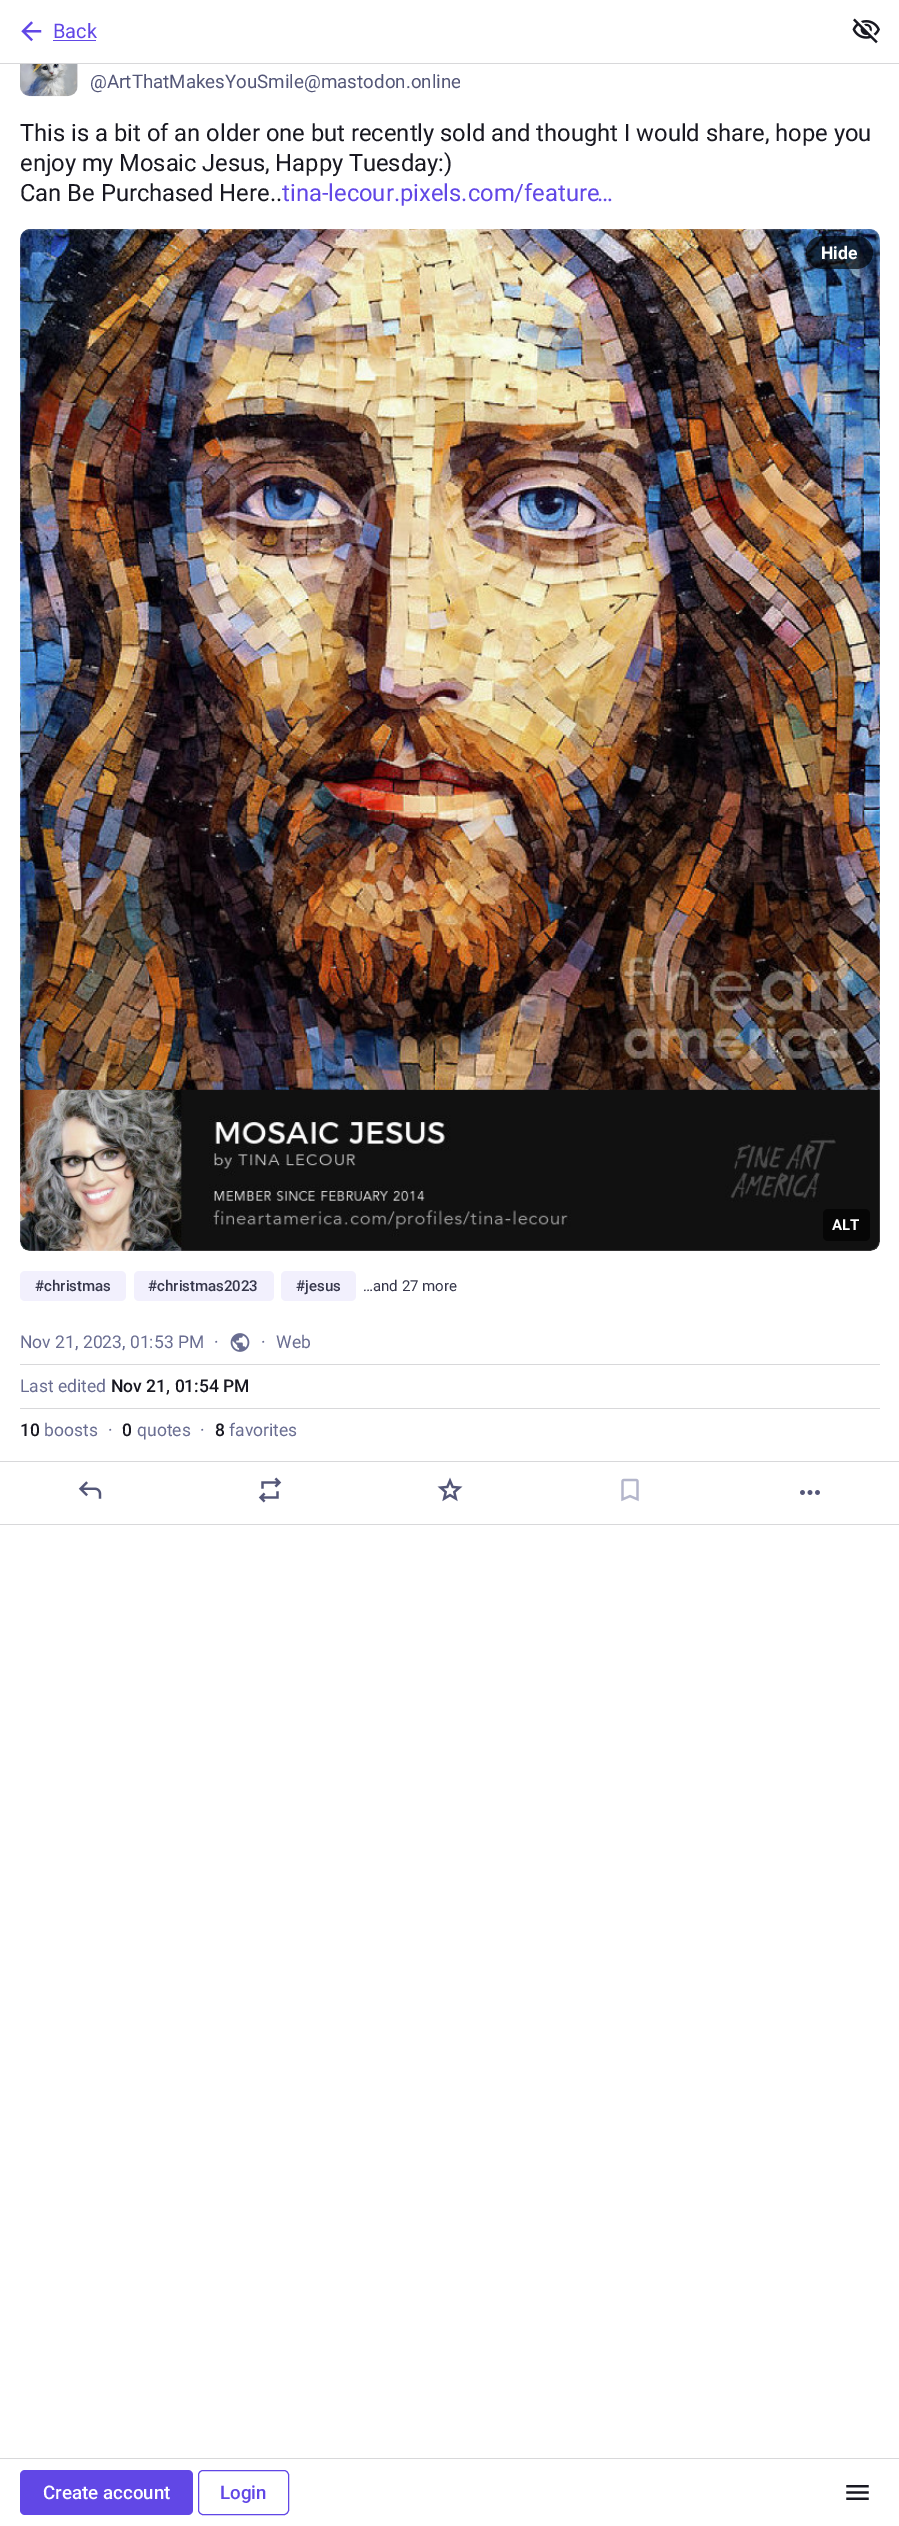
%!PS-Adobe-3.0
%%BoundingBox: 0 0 899 2526
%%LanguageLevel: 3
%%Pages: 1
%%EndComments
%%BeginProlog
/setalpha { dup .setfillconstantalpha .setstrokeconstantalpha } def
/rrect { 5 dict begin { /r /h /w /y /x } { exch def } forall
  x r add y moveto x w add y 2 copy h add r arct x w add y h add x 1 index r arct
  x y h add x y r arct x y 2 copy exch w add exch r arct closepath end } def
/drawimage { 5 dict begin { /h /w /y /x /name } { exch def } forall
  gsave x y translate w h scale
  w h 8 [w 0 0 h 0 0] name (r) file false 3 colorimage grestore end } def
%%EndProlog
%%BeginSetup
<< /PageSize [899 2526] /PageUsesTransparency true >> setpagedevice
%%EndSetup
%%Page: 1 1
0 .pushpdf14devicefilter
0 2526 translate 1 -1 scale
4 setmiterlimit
1 setgray
0 0 899 2526 rectfill
0.925 0.929 0.945 setrgbcolor
20 39 58 57 10 rrect fill
1 setgray
20 39 58 24 rectfill
0.847 0.847 0.855 setrgbcolor
0 63 899 1 rectfill
(images/1.raw) 21 21 21 21 drawimage
0.38 0.278 0.902 setrgbcolor
53 40 43 1 rectfill
(images/2.raw) 852 18 28 26 drawimage
(images/3.raw) 20 64 58 33 drawimage
(images/4.raw) 20 229 860 1022 drawimage
0.15 setalpha
0.988 0.973 1 setrgbcolor
20.5 229.5 859 1021 9.5 rrect stroke
0.65 setalpha
0 setgray
806 236 67 33 16.5 rrect fill
1 setalpha
0.024 setgray
823 1209 47 32 5 rrect fill
0.949 0.941 0.992 setrgbcolor
20 1271 106 30 5 rrect fill
134 1271 140 30 5 rrect fill
281 1271 75 30 5 rrect fill
0.847 0.847 0.855 setrgbcolor
20 1364 860 1 rectfill
(images/5.raw) 230 1333 20 19 drawimage
20 1408 860 1 rectfill
0 1461 899 1 rectfill
0 1524 899 1 rectfill
(images/6.raw) 78 1481 24 18 drawimage
(images/7.raw) 258 1477 24 26 drawimage
(images/8.raw) 437 1477 26 25 drawimage
(images/9.raw) 621 1478 18 24 drawimage
(images/10.raw) 800 1490 20 5 drawimage
0 2458 899 1 rectfill
0.38 0.278 0.902 setrgbcolor
20 2470 173 45 5 rrect fill
198.5 2470.5 90 44 4.5 rrect stroke
(images/11.raw) 846 2485 23 15 drawimage
/Roboto-Regular [20 0 0 -20 0 0] selectfont
53 38 moveto (Back) show
gsave
90 68 370 27 rectclip
/Roboto-Regular [18.75 0 0 -18.75 0 0] selectfont
0.329 0.341 0.471 setrgbcolor
90 88 moveto (@ArtThatMakesYouSmile@mastodon.online) show
grestore
/Roboto-Regular [23.75 0 0 -23.75 0 0] selectfont
0.094 0.094 0.129 setrgbcolor
20 141 moveto (This is a bit of an older one but recently sold and thought I would share, hope you) show
20 171 moveto -0.5 0 32 (enjoy my Mosaic Jesus, Happy Tuesday:\)) widthshow
20 201 moveto (Can Be Purchased Here..) show
0.38 0.278 0.902 setrgbcolor
282 201 moveto (tina-lecour.pixels.com/feature) show
597 201 moveto (…) show
/Roboto-Bold [17.5 0 0 -17.5 0 0] selectfont
1 setgray
821 259 moveto (Hide) show
/Roboto-Bold [15 0 0 -15 0 0] selectfont
832 1230 moveto (ALT) show
/Roboto-Medium [15 0 0 -15 0 0] selectfont
0.208 0.212 0.29 setrgbcolor
35 1291 moveto (#christmas) show
148 1291 moveto (#christmas2023) show
296 1291 moveto (#jesus) show
/Roboto-Regular [15 0 0 -15 0 0] selectfont
363 1291 moveto (…and 27 more) show
/Roboto-Regular [17.5 0 0 -17.5 0 0] selectfont
0.412 0.427 0.569 setrgbcolor
20 1348 moveto (Nov 21, 2023, 01:53 PM) show
214 1348 moveto (·) show
261 1348 moveto (·) show
276 1348 moveto (Web) show
20 1392 moveto (Last edited) show
/Roboto-Medium [17.5 0 0 -17.5 0 0] selectfont
0.094 0.094 0.129 setrgbcolor
111 1392 moveto (Nov 21, 01:54 PM) show
20 1436 moveto (10) show
/Roboto-Regular [17.5 0 0 -17.5 0 0] selectfont
0.412 0.427 0.569 setrgbcolor
44 1436 moveto (boosts) show
108 1436 moveto (·) show
/Roboto-Medium [17.5 0 0 -17.5 0 0] selectfont
0.094 0.094 0.129 setrgbcolor
122 1436 moveto (0) show
/Roboto-Regular [17.5 0 0 -17.5 0 0] selectfont
0.412 0.427 0.569 setrgbcolor
137 1436 moveto (quotes) show
200 1436 moveto (·) show
/Roboto-Medium [17.5 0 0 -17.5 0 0] selectfont
0.094 0.094 0.129 setrgbcolor
215 1436 moveto (8) show
/Roboto-Regular [17.5 0 0 -17.5 0 0] selectfont
0.412 0.427 0.569 setrgbcolor
229 1436 moveto (favorites) show
/Roboto-Medium [18.75 0 0 -18.75 0 0] selectfont
1 setgray
43 2499 moveto (Create account) show
0.38 0.278 0.902 setrgbcolor
220 2499 moveto (Login) show
.poppdf14devicefilter showpage
%%EOF
